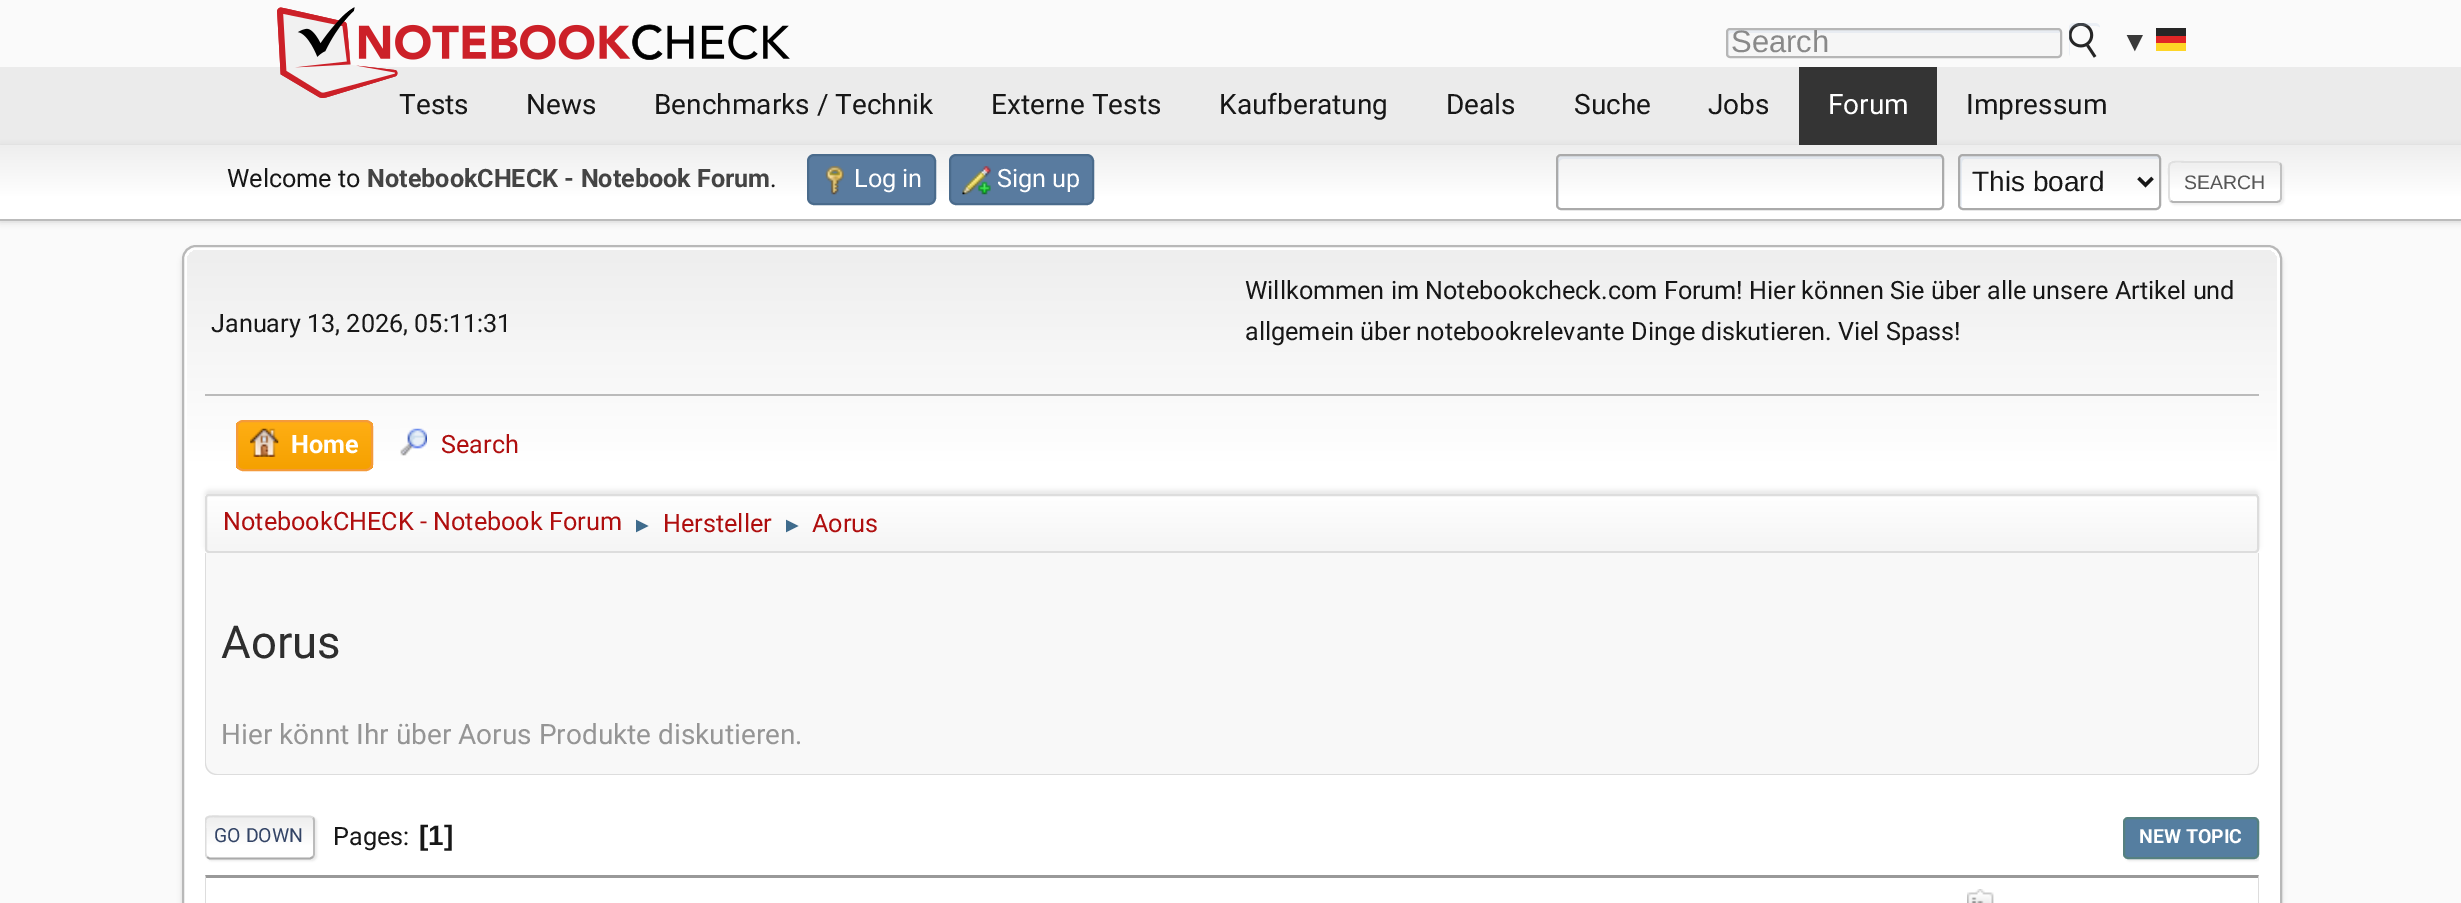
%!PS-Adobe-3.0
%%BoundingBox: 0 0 2461 903
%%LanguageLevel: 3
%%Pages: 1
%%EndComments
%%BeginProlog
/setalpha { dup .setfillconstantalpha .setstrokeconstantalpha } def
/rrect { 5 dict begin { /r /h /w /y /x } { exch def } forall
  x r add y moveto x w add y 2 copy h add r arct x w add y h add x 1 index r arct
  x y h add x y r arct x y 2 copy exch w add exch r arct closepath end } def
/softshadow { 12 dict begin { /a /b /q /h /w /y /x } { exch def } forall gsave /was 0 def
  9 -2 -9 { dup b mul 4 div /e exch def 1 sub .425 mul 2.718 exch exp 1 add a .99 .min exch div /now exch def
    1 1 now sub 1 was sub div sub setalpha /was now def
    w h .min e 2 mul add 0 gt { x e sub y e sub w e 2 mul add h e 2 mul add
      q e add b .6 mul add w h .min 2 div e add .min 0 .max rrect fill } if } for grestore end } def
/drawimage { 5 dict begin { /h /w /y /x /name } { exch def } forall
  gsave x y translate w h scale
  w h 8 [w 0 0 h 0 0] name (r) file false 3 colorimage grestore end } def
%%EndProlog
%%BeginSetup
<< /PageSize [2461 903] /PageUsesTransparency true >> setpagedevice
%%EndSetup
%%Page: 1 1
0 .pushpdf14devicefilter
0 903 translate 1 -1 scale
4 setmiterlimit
0.98 setgray
0 0 2461 903 rectfill
(images/1.raw) 277 7 513 91 drawimage
0 setgray
0 147 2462 75 0 3.5 0.16 softshadow
0.06 setalpha
0 67 2461 78 rectfill
1 setalpha
(images/2.raw) 277 7 120 91 drawimage
0.965 setgray
1726 28 336 30 4 rrect fill
0.91 0.925 0.949 setrgbcolor
newpath 1731 33 moveto 2060 33 lineto 2060 32 lineto 2060 31 2059 30 2058 30 curveto 1729 30 lineto 1728 30 1727 31 1727 32 curveto 1727 54 lineto 1727 55 1728 56 1729 56 curveto 1729 35 lineto 1729 34 1730 33 1731 33 curveto closepath fill
0.714 setgray
2 setlinewidth
1727 29 334 28 3 rrect stroke
(images/3.raw) 2069 23 28 35 drawimage
0.2 setalpha
0.682 0.769 0.882 setrgbcolor
newpath 2076 26 moveto 2096 26 lineto 2097.5 26 2099 26.5 2100 27.5 curveto 2100 25 2097.5 23 2095 23 curveto 2074 23 lineto 2071 23 2069 25 2069 28 curveto 2069 53 lineto 2069 54 2069.5 55 2070 56 curveto 2070 32 lineto 2070 29 2073 26 2076 26 curveto closepath fill
1 setalpha
0.149 setgray
2156 28 30 8 rectfill
0.882 0.149 0.149 setrgbcolor
2156 36 30 7 rectfill
0.996 0.835 0.149 setrgbcolor
2156 43 30 8 rectfill
0.204 setgray
1799 67 138 78 rectfill
gsave newpath 0 145 moveto 2461 145 lineto 2461 219 lineto 0 219 lineto closepath clip newpath
<< /ShadingType 2 /ColorSpace /DeviceRGB /Coords [1231 145 1231 219] /Extend [true true] /Function << /FunctionType 3 /Domain [0 1] /Functions [<< /FunctionType 2 /Domain [0 1] /C0 [0.933 0.933 0.933] /C1 [1 1 1] /N 1 >> << /FunctionType 2 /Domain [0 1] /C0 [1 1 1] /C1 [1 1 1] /N 1 >>] /Bounds [0.7] /Encode [0 1 0 1] >> >> shfill grestore
0.733 setgray
0 219 2461 2 rectfill
0.349 0.482 0.624 setrgbcolor
808 155 127 49 6 rrect gsave fill grestore
0.29 0.42 0.549 setrgbcolor
stroke
(images/4.raw) 825 166 19 29 drawimage
0.349 0.482 0.624 setrgbcolor
950 155 143 49 6 rrect gsave fill grestore
0.29 0.42 0.549 setrgbcolor
stroke
(images/5.raw) 962 166 29 29 drawimage
0.2 setalpha
0.627 0.733 0.867 setrgbcolor
newpath 1563 159 moveto 1941 159 lineto 1943 160 lineto 1943 158 1941 156 1939 156 curveto 1562 156 lineto 1560 156 1558 158 1558 160 curveto 1558 204 lineto 1558 205 1558 206 1559 207 curveto 1559 163 lineto 1559 161 1561 159 1563 159 curveto closepath fill
1 setalpha
0.667 setgray
1557 155 386 54 4 rrect stroke
0.2 setalpha
0.627 0.733 0.867 setrgbcolor
newpath 1965 159 moveto 2158 159 lineto 2160 160 lineto 2160 158 2158 156 2156 156 curveto 1964 156 lineto 1962 156 1960 158 1960 160 curveto 1960 204 lineto 1960 205 1961 207 1962 207 curveto 1962 163 lineto 1962 161 1963 159 1965 159 curveto closepath fill
1 setalpha
0.667 setgray
1959 155 201 54 4 rrect stroke
0.09 setgray
3.5 setlinewidth
newpath 2138.5 178 moveto 2145.5 185 lineto 2152.5 178 lineto stroke
gsave
newpath 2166 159 moveto 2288 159 lineto 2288 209 lineto 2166 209 lineto closepath 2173 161 moveto 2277 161 lineto 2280 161 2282 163 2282 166 curveto 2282 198 lineto 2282 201 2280 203 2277 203 curveto 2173 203 lineto 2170 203 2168 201 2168 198 curveto 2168 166 lineto 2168 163 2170 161 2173 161 curveto closepath eoclip newpath
0.867 setgray
2170 163 114 42 5 1 0.51 softshadow
grestore
0.9 setalpha
1 setgray
2168 161 114 42 5 rrect fill
gsave
2168 161 114 42 5 rrect clip newpath
1 setalpha
gsave newpath 2168 161 moveto 2282 161 lineto 2282 163 lineto 2168 163 lineto closepath clip newpath
<< /ShadingType 2 /ColorSpace /DeviceRGB /Coords [2225 124 2225 163] /Extend [true true] /Function << /FunctionType 3 /Domain [0 1] /Functions [<< /FunctionType 2 /Domain [0 1] /C0 [0.937 0.937 0.937] /C1 [0.996 0.996 0.996] /N 1 >> << /FunctionType 2 /Domain [0 1] /C0 [0.996 0.996 0.996] /C1 [0.996 0.996 0.996] /N 1 >>] /Bounds [0.7] /Encode [0 1 0 1] >> >> shfill grestore
0.9 setalpha
gsave newpath 2168 163 moveto 2282 163 lineto 2282 201 lineto 2168 201 lineto closepath clip newpath
<< /ShadingType 2 /ColorSpace /DeviceRGB /Coords [2225 163 2225 201] /Extend [true true] /Function << /FunctionType 3 /Domain [0 1] /Functions [<< /FunctionType 2 /Domain [0 1] /C0 [0.933 0.933 0.933] /C1 [1 1 1] /N 1 >> << /FunctionType 2 /Domain [0 1] /C0 [1 1 1] /C1 [1 1 1] /N 1 >>] /Bounds [0.7] /Encode [0 1 0 1] >> >> shfill grestore
1 setalpha
gsave newpath 2168 201 moveto 2282 201 lineto 2282 203 lineto 2168 203 lineto closepath clip newpath
<< /ShadingType 2 /ColorSpace /DeviceRGB /Coords [2225 201 2225 240] /Extend [true true] /Function << /FunctionType 3 /Domain [0 1] /Functions [<< /FunctionType 2 /Domain [0 1] /C0 [0.941 0.941 0.941] /C1 [1 1 1] /N 1 >> << /FunctionType 2 /Domain [0 1] /C0 [1 1 1] /C1 [1 1 1] /N 1 >>] /Bounds [0.7] /Encode [0 1 0 1] >> >> shfill grestore
grestore
0.733 setgray
1.8 setlinewidth
newpath 2280 163 moveto 2280.5 164 2281 165 2281 166 curveto 2281 198 lineto 2281 199 2280.5 200 2280 201 curveto stroke
1 setalpha
0.702 setgray
newpath 2280 201 moveto 2277 202 lineto 2173 202 lineto 2170.5 201 lineto stroke
0.9 setalpha
0.867 setgray
newpath 2170.5 201 moveto 2168.5 199 2169 195 2169 192.5 curveto 2169 182 lineto 2169 158 2165.5 162 2190.5 162 curveto 2277 162 lineto 2280 163 lineto stroke
1 setalpha
0 setgray
182 249 2100 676 14 2.5 0.14 softshadow
1 setgray
183 246 2098 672 13 rrect gsave fill grestore
0.722 setgray
2 setlinewidth
stroke
gsave newpath 198 250 moveto 2266 250 lineto 2272 250 2277 255 2277 261 curveto 2277 557 lineto 187 557 lineto 187 261 lineto 187 255 192 250 198 250 curveto closepath clip newpath
<< /ShadingType 2 /ColorSpace /DeviceRGB /Coords [1232 250 1232 557] /Extend [true true] /Function << /FunctionType 3 /Domain [0 1] /Functions [<< /FunctionType 2 /Domain [0 1] /C0 [0.933 0.933 0.933] /C1 [1 1 1] /N 1 >> << /FunctionType 2 /Domain [0 1] /C0 [1 1 1] /C1 [1 1 1] /N 1 >>] /Bounds [0.7] /Encode [0 1 0 1] >> >> shfill grestore
0.733 setgray
205 394 2054 2 rectfill
gsave
236 420 137 51 7 rrect clip newpath
gsave newpath 236 422 moveto 373 422 lineto 373 469 lineto 236 469 lineto closepath clip newpath
<< /ShadingType 2 /ColorSpace /DeviceRGB /Coords [305 422 305 469] /Extend [true true] /Function << /FunctionType 2 /Domain [0 1] /C0 [1 0.682 0.078] /C1 [0.961 0.631 0] /N 1 >> >> shfill grestore
grestore
0.957 0.604 0.227 setrgbcolor
237 421 135 49 6 rrect stroke
(images/6.raw) 250 428 29 29 drawimage
(images/7.raw) 400 428 27 28 drawimage
0 setgray
205 490 2054 60 4 2 0.08 softshadow
gsave
205 494 2054 59 4 rrect clip newpath
gsave newpath 205 495 moveto 2259 495 lineto 2259 551 lineto 205 551 lineto closepath clip newpath
<< /ShadingType 2 /ColorSpace /DeviceRGB /Coords [1232 495 1232 551] /Extend [true true] /Function << /FunctionType 3 /Domain [0 1] /Functions [<< /FunctionType 2 /Domain [0 1] /C0 [1 1 1] /C1 [0.961 0.961 0.961] /N 1 >> << /FunctionType 2 /Domain [0 1] /C0 [0.961 0.961 0.961] /C1 [0.961 0.961 0.961] /N 1 >>] /Bounds [0.95] /Encode [0 1 0 1] >> >> shfill grestore
grestore
0.867 setgray
206 495 2052 57 3 rrect stroke
0.973 setgray
newpath 205 553 moveto 2259 553 lineto 2259 763 lineto 2259 769.5 2253.5 775 2247 775 curveto 217 775 lineto 210.5 775 205 769.5 205 763 curveto closepath fill
0.867 setgray
newpath 205 553 moveto 2259 553 lineto 2259 763 lineto 2259 770 2254 775 2247 775 curveto 217 775 lineto 210 775 205 770 205 763 curveto closepath 206 553 moveto 2258 553 lineto 2258 763 lineto 2258 769 2253 774 2247 774 curveto 217 774 lineto 211 774 206 769 206 763 curveto closepath eofill
207 817 110 44 5 1 0.57 softshadow
gsave
205 816 110 43 5 rrect clip newpath
gsave newpath 205 817 moveto 315 817 lineto 315 858 lineto 205 858 lineto closepath clip newpath
<< /ShadingType 2 /ColorSpace /DeviceRGB /Coords [260 817 260 858] /Extend [true true] /Function << /FunctionType 3 /Domain [0 1] /Functions [<< /FunctionType 2 /Domain [0 1] /C0 [0.933 0.933 0.933] /C1 [1 1 1] /N 1 >> << /FunctionType 2 /Domain [0 1] /C0 [1 1 1] /C1 [1 1 1] /N 1 >>] /Bounds [0.7] /Encode [0 1 0 1] >> >> shfill grestore
grestore
0.733 setgray
1.8 setlinewidth
newpath 313 817.5 moveto 313.5 818.5 314 819.5 314 821 curveto 314 854 lineto 314 855 313.5 856.5 313 857 curveto stroke
0.667 setgray
newpath 313 857 moveto 310 858.5 lineto 209.5 858.5 lineto 207 857 lineto stroke
gsave
205 802 2054 73 rectclip
0.867 setgray
newpath 207 857 moveto 205 855 205.5 851 205.5 848.5 curveto 205.5 837.5 lineto 205.5 813 201.5 816.5 226.5 816.5 curveto 310 816.5 lineto 313 817.5 lineto stroke
grestore
gsave
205 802 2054 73 rectclip
0.867 setgray
2125 819 136 42 5 1 0.57 softshadow
grestore
0.333 0.494 0.627 setrgbcolor
2124 818 134 40 4 rrect gsave fill grestore
0.333 0.502 0.502 setrgbcolor
2 setlinewidth
stroke
0.6 setgray
newpath 205 875 moveto 2259 875 lineto 2258 878 lineto 206 878 lineto closepath fill
0.867 setgray
newpath 2259 875 moveto 2259 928 lineto 2258 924 lineto 2258 878 lineto closepath fill
newpath 205 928 moveto 205 875 lineto 206 878 lineto 206 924 lineto closepath fill
(images/8.raw) 1967 889 27 14 drawimage
gsave
1727 30 333 26 2 rrect clip newpath
/LiberationSans-Regular [31 0 0 -31 0 0] selectfont
0.537 setgray
1731 52 moveto (Search) show
grestore
/LiberationSans-Regular [28 0 0 -28 0 0] selectfont
0.224 setgray
2121 51 moveto (▼) show
/Roboto-Regular [28 0 0 -28 0 0] selectfont
0.09 setgray
399 114 moveto (Tests) show
526 114 moveto (News) show
654 114 moveto (Benchmarks / Technik) show
991 114 moveto (Externe Tests) show
1219 114 moveto (Kaufberatung) show
1446 114 moveto (Deals) show
1574 114 moveto (Suche) show
1708 114 moveto (Jobs) show
1 setgray
1828 114 moveto (Forum) show
0.09 setgray
1966 114 moveto (Impressum) show
/Roboto-Regular [25.2 0 0 -25.2 0 0] selectfont
227 187 moveto (Welcome to) show
/Roboto-Bold [25.2 0 0 -25.2 0 0] selectfont
0.267 setgray
367 187 moveto (NotebookCHECK - Notebook Forum) show
/Roboto-Regular [25.2 0 0 -25.2 0 0] selectfont
0.09 setgray
770 187 moveto (.) show
1 setgray
854 187 moveto (Log in) show
997 187 moveto (Sign up) show
/LiberationSans-Regular [28 0 0 -28 0 0] selectfont
0.09 setgray
1972 191 moveto (This board) show
/LiberationSans-Regular [19.5 0 0 -19.5 0 0] selectfont
0.337 setgray
2184 189 moveto (SEARCH) show
/Roboto-Regular [25.2 0 0 -25.2 0 0] selectfont
0.09 setgray
211 332 moveto (January 13, 2026, 05:11:31) show
1245 299 moveto (Willkommen im Notebookcheck.com Forum! Hier können Sie über alle unsere Artikel und) show
1245 340 moveto (allgemein über notebookrelevante Dinge diskutieren. Viel Spass!) show
/Roboto-Bold [25.2 0 0 -25.2 0 0] selectfont
1 setgray
291 453 moveto (Home) show
/Roboto-Regular [25.2 0 0 -25.2 0 0] selectfont
0.686 0.055 0.055 setrgbcolor
441 453 moveto (Search) show
223 530 moveto (NotebookCHECK - Notebook Forum) show
/LiberationSans-Regular [21 0 0 -21 0 0] selectfont
0.247 0.42 0.549 setrgbcolor
632 532 moveto (►) show
/Roboto-Regular [25.2 0 0 -25.2 0 0] selectfont
0.686 0.055 0.055 setrgbcolor
663 532 moveto (Hersteller) show
/LiberationSans-Regular [21 0 0 -21 0 0] selectfont
0.247 0.42 0.549 setrgbcolor
782 532 moveto (►) show
/Roboto-Regular [25.2 0 0 -25.2 0 0] selectfont
0.686 0.055 0.055 setrgbcolor
812 532 moveto (Aorus) show
/Roboto-Regular [45.5 0 0 -45.5 0 0] selectfont
0.18 setgray
221 658 moveto (Aorus) show
/Roboto-Regular [28 0 0 -28 0 0] selectfont
0.584 setgray
221 744 moveto (Hier könnt Ihr über Aorus Produkte diskutieren.) show
/Roboto-Regular [19.5 0 0 -19.5 0 0] selectfont
0.2 0.267 0.4 setrgbcolor
214 842 moveto (GO DOWN) show
/Roboto-Regular [25.2 0 0 -25.2 0 0] selectfont
0.09 setgray
333 845 moveto (Pages:) show
/LiberationSans-Bold [28 0 0 -28 0 0] selectfont
419 845 moveto ([1]) show
/Roboto-Bold [19.5 0 0 -19.5 0 0] selectfont
1 setgray
2139 843 moveto (NEW TOPIC) show
.poppdf14devicefilter showpage
%%EOF
